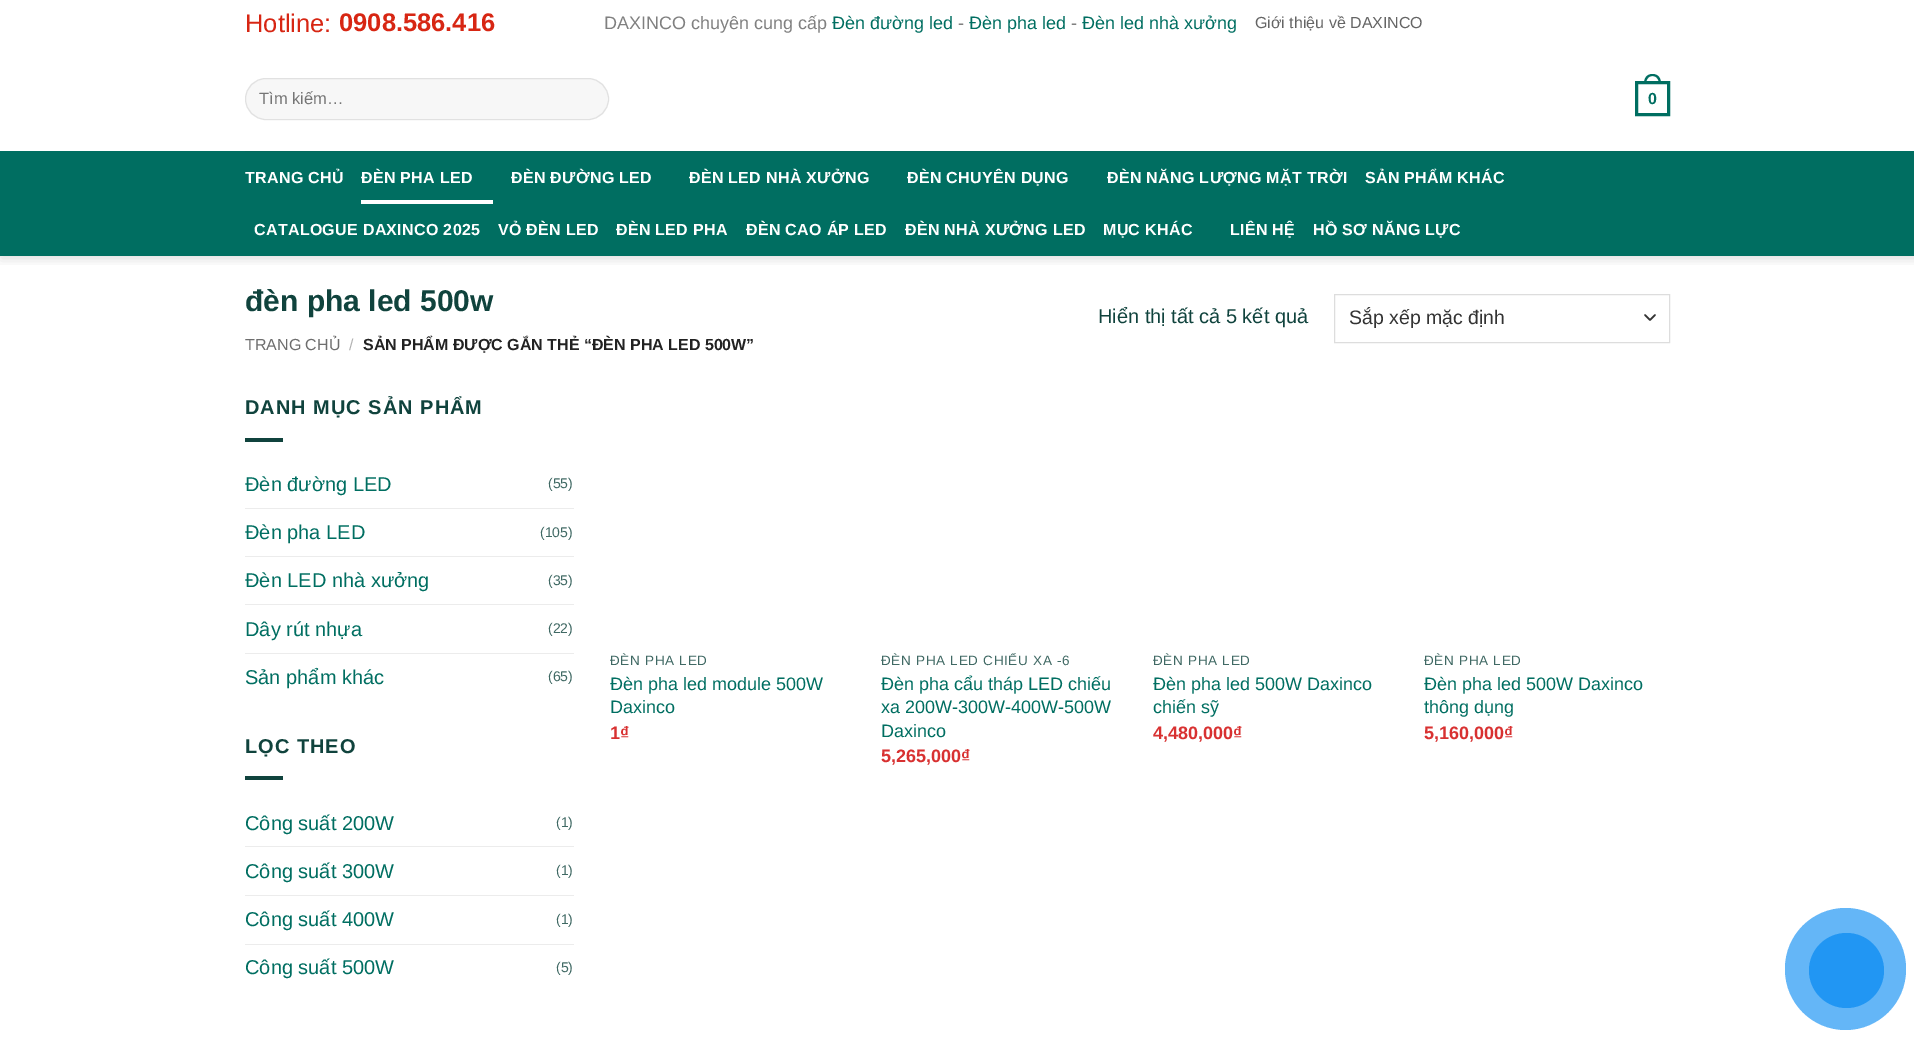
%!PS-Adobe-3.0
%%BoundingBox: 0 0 1914 1039
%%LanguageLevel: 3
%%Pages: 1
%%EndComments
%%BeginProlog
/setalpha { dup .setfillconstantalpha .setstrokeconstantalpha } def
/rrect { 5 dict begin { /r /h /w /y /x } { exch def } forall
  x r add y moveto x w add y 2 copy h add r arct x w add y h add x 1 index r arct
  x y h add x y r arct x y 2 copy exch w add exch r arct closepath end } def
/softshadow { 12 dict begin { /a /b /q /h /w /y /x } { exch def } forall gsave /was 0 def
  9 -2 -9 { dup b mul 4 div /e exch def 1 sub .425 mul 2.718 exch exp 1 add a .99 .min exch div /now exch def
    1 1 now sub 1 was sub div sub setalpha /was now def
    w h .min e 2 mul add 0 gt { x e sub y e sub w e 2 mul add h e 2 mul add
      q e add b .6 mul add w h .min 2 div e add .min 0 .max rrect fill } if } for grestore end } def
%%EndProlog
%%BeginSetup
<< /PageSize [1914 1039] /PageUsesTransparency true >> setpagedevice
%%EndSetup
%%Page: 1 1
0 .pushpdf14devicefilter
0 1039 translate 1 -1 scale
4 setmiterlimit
1 setgray
0 0 1914 1039 rectfill
gsave
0 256 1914 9 rectclip
0 setgray
1 1 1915 257 0 6 0.15 softshadow
grestore
0.969 setgray
245 78 364 42 21 rrect fill
0.09 setalpha
0 setgray
245.5 78.5 363 41 20.5 rrect stroke
1 setalpha
0 0.431 0.38 setrgbcolor
3 setlinewidth
1636.5 82.5 32 32 rectstroke
newpath 1652.5 74 moveto 1658.5 74 1661 78.5 1661 84 curveto 1644 84 lineto 1644 78.5 1646.5 74 1652.5 74 curveto closepath 1652.5 76 moveto 1657 76 1659 80 1659 84 curveto 1646 84 lineto 1646 80 1648 76 1652.5 76 curveto closepath eofill
0 151 1914 105 rectfill
0.008 0.416 0.365 setrgbcolor
245 151 1425 1 rectfill
1 setgray
361 200 132 4 rectfill
0.2 setgray
1.7 setlinewidth
1 setlinecap
1 setlinejoin
newpath 1645 315 moveto 1650 320 lineto 1655 315 lineto stroke
0.867 setgray
1 setlinewidth
0 setlinecap
0 setlinejoin
1334.5 294.5 335 48 rectstroke
0.063 0.263 0.239 setrgbcolor
245 438 38 4 rectfill
0.925 setgray
245 508 329 1 rectfill
245 556 329 1 rectfill
245 604 329 1 rectfill
245 653 329 1 rectfill
0.063 0.263 0.239 setrgbcolor
245 776 38 4 rectfill
0.925 setgray
245 846 329 1 rectfill
245 895 329 1 rectfill
245 944 329 1 rectfill
0.392 0.714 0.969 setrgbcolor
1785 908 121 122 60.5 rrect fill
0.129 0.588 0.953 setrgbcolor
newpath 1846.5 970.5 37.5 0 360 arc closepath fill
/LiberationSans-Regular [25.5 0 0 -25.5 0 0] selectfont
0.843 0.149 0.075 setrgbcolor
245 32 moveto (Hotline:) show
/LiberationSans-Bold [25.5 0 0 -25.5 0 0] selectfont
339 31 moveto (0908.586.416) show
/LiberationSans-Regular [18 0 0 -18 0 0] selectfont
0.502 setgray
604 29 moveto (DAXINCO chuyên cung cấp) show
0 0.431 0.38 setrgbcolor
832 29 moveto (Đèn đường led) show
0.502 setgray
958 29 moveto (-) show
0 0.431 0.38 setrgbcolor
969 29 moveto (Đèn pha led) show
0.502 setgray
1071 29 moveto (-) show
0 0.431 0.38 setrgbcolor
1082 29 moveto (Đèn led nhà xưởng) show
/LiberationSans-Regular [16 0 0 -16 0 0] selectfont
0.396 setgray
1255 28 moveto (Giới thiệu về DAXINCO) show
/LiberationSans-Regular [16.5 0 0 -16.5 0 0] selectfont
0.459 setgray
259 104 moveto (Tìm kiếm…) show
/LiberationSans-Bold [16 0 0 -16 0 0] selectfont
0 0.431 0.38 setrgbcolor
1648 104 moveto 0.3 0 (0) ashow
1 setgray
245 183 moveto 0.3 0 (TRANG CHỦ) ashow
361 183 moveto 0.3 0 (ĐÈN PHA LED) ashow
511 183 moveto 0.3 0 (ĐÈN ĐƯỜNG LED) ashow
689 183 moveto 0.3 0 (ĐÈN LED NHÀ XƯỞNG) ashow
907 183 moveto 0.3 0 (ĐÈN CHUYÊN DỤNG) ashow
1107 183 moveto 0.3 0 (ĐÈN NĂNG LƯỢNG MẶT TRỜI) ashow
1365 183 moveto 0.3 0 (SẢN PHẨM KHÁC) ashow
254 235 moveto 0.3 0 (CATALOGUE DAXINCO 2025) ashow
498 235 moveto 0.3 0 (VỎ ĐÈN LED) ashow
616 235 moveto 0.3 0 (ĐÈN LED PHA) ashow
746 235 moveto 0.3 0 (ĐÈN CAO ÁP LED) ashow
905 235 moveto 0.3 0 (ĐÈN NHÀ XƯỞNG LED) ashow
1103 235 moveto 0.3 0 (MỤC KHÁC) ashow
1230 235 moveto 0.3 0 (LIÊN HỆ) ashow
1313 235 moveto 0.3 0 (HỒ SƠ NĂNG LỰC) ashow
/LiberationSans-Bold [30 0 0 -30 0 0] selectfont
0.063 0.263 0.239 setrgbcolor
245 311 moveto (đèn pha led 500w) show
/LiberationSans-Regular [16 0 0 -16 0 0] selectfont
0.431 setgray
245 350 moveto (TRANG CHỦ) show
0.698 setgray
349 350 moveto (/) show
/LiberationSans-Bold [16 0 0 -16 0 0] selectfont
0.133 setgray
363 350 moveto (SẢN PHẨM ĐƯỢC GẮN THẺ “ĐÈN PHA LED 500W”) show
/LiberationSans-Regular [20 0 0 -20 0 0] selectfont
0.063 0.263 0.239 setrgbcolor
1098 323 moveto (Hiển thị tất cả 5 kết quả) show
/LiberationSans-Regular [19.5 0 0 -19.5 0 0] selectfont
0.2 setgray
1349 324 moveto (Sắp xếp mặc định) show
/LiberationSans-Bold [20 0 0 -20 0 0] selectfont
0.063 0.263 0.239 setrgbcolor
245 414 moveto 1 0 (DANH MỤC SẢN PHẨM) ashow
/LiberationSans-Regular [20 0 0 -20 0 0] selectfont
0 0.431 0.38 setrgbcolor
245 491 moveto (Đèn đường LED) show
/LiberationSans-Regular [14 0 0 -14 0 0] selectfont
0.251 0.412 0.392 setrgbcolor
548 488 moveto (\(55\)) show
/LiberationSans-Regular [20 0 0 -20 0 0] selectfont
0 0.431 0.38 setrgbcolor
245 539 moveto (Đèn pha LED) show
/LiberationSans-Regular [14 0 0 -14 0 0] selectfont
0.251 0.412 0.392 setrgbcolor
540 537 moveto (\(105\)) show
/LiberationSans-Regular [20 0 0 -20 0 0] selectfont
0 0.431 0.38 setrgbcolor
245 587 moveto (Đèn LED nhà xưởng) show
/LiberationSans-Regular [14 0 0 -14 0 0] selectfont
0.251 0.412 0.392 setrgbcolor
548 585 moveto (\(35\)) show
/LiberationSans-Regular [20 0 0 -20 0 0] selectfont
0 0.431 0.38 setrgbcolor
245 636 moveto (Dây rút nhựa) show
/LiberationSans-Regular [14 0 0 -14 0 0] selectfont
0.251 0.412 0.392 setrgbcolor
548 633 moveto (\(22\)) show
/LiberationSans-Regular [20 0 0 -20 0 0] selectfont
0 0.431 0.38 setrgbcolor
245 684 moveto (Sản phẩm khác) show
/LiberationSans-Regular [14 0 0 -14 0 0] selectfont
0.251 0.412 0.392 setrgbcolor
548 681 moveto (\(65\)) show
/LiberationSans-Bold [20 0 0 -20 0 0] selectfont
0.063 0.263 0.239 setrgbcolor
245 753 moveto 1 0 (LỌC THEO) ashow
/LiberationSans-Regular [20 0 0 -20 0 0] selectfont
0 0.431 0.38 setrgbcolor
245 830 moveto (Công suất 200W) show
/LiberationSans-Regular [14 0 0 -14 0 0] selectfont
0.251 0.412 0.392 setrgbcolor
556 827 moveto (\(1\)) show
/LiberationSans-Regular [20 0 0 -20 0 0] selectfont
0 0.431 0.38 setrgbcolor
245 878 moveto (Công suất 300W) show
/LiberationSans-Regular [14 0 0 -14 0 0] selectfont
0.251 0.412 0.392 setrgbcolor
556 875 moveto (\(1\)) show
/LiberationSans-Regular [20 0 0 -20 0 0] selectfont
0 0.431 0.38 setrgbcolor
245 926 moveto (Công suất 400W) show
/LiberationSans-Regular [14 0 0 -14 0 0] selectfont
0.251 0.412 0.392 setrgbcolor
556 924 moveto (\(1\)) show
/LiberationSans-Regular [20 0 0 -20 0 0] selectfont
0 0.431 0.38 setrgbcolor
245 974 moveto (Công suất 500W) show
/LiberationSans-Regular [14 0 0 -14 0 0] selectfont
0.251 0.412 0.392 setrgbcolor
556 972 moveto (\(5\)) show
/LiberationSans-Regular [13.5 0 0 -13.5 0 0] selectfont
610 665 moveto 0.7 0 (ĐÈN PHA LED) ashow
/LiberationSans-Regular [18 0 0 -18 0 0] selectfont
0 0.431 0.38 setrgbcolor
610 690 moveto (Đèn pha led module 500W) show
610 713 moveto (Daxinco) show
/LiberationSans-Bold [18 0 0 -18 0 0] selectfont
0.847 0.192 0.192 setrgbcolor
610 739 moveto (1₫) show
/LiberationSans-Regular [13.5 0 0 -13.5 0 0] selectfont
0.251 0.412 0.392 setrgbcolor
881 665 moveto 0.7 0 (ĐÈN PHA LED CHIẾU XA -6) ashow
/LiberationSans-Regular [18 0 0 -18 0 0] selectfont
0 0.431 0.38 setrgbcolor
881 690 moveto (Đèn pha cẩu tháp LED chiếu) show
881 713 moveto (xa 200W-300W-400W-500W) show
881 737 moveto (Daxinco) show
/LiberationSans-Bold [18 0 0 -18 0 0] selectfont
0.847 0.192 0.192 setrgbcolor
881 762 moveto (5,265,000₫) show
/LiberationSans-Regular [13.5 0 0 -13.5 0 0] selectfont
0.251 0.412 0.392 setrgbcolor
1153 665 moveto 0.7 0 (ĐÈN PHA LED) ashow
/LiberationSans-Regular [18 0 0 -18 0 0] selectfont
0 0.431 0.38 setrgbcolor
1153 690 moveto (Đèn pha led 500W Daxinco) show
1153 713 moveto (chiến sỹ) show
/LiberationSans-Bold [18 0 0 -18 0 0] selectfont
0.847 0.192 0.192 setrgbcolor
1153 739 moveto (4,480,000₫) show
/LiberationSans-Regular [13.5 0 0 -13.5 0 0] selectfont
0.251 0.412 0.392 setrgbcolor
1424 665 moveto 0.7 0 (ĐÈN PHA LED) ashow
/LiberationSans-Regular [18 0 0 -18 0 0] selectfont
0 0.431 0.38 setrgbcolor
1424 690 moveto (Đèn pha led 500W Daxinco) show
1424 713 moveto (thông dụng) show
/LiberationSans-Bold [18 0 0 -18 0 0] selectfont
0.847 0.192 0.192 setrgbcolor
1424 739 moveto (5,160,000₫) show
.poppdf14devicefilter showpage
%%EOF
